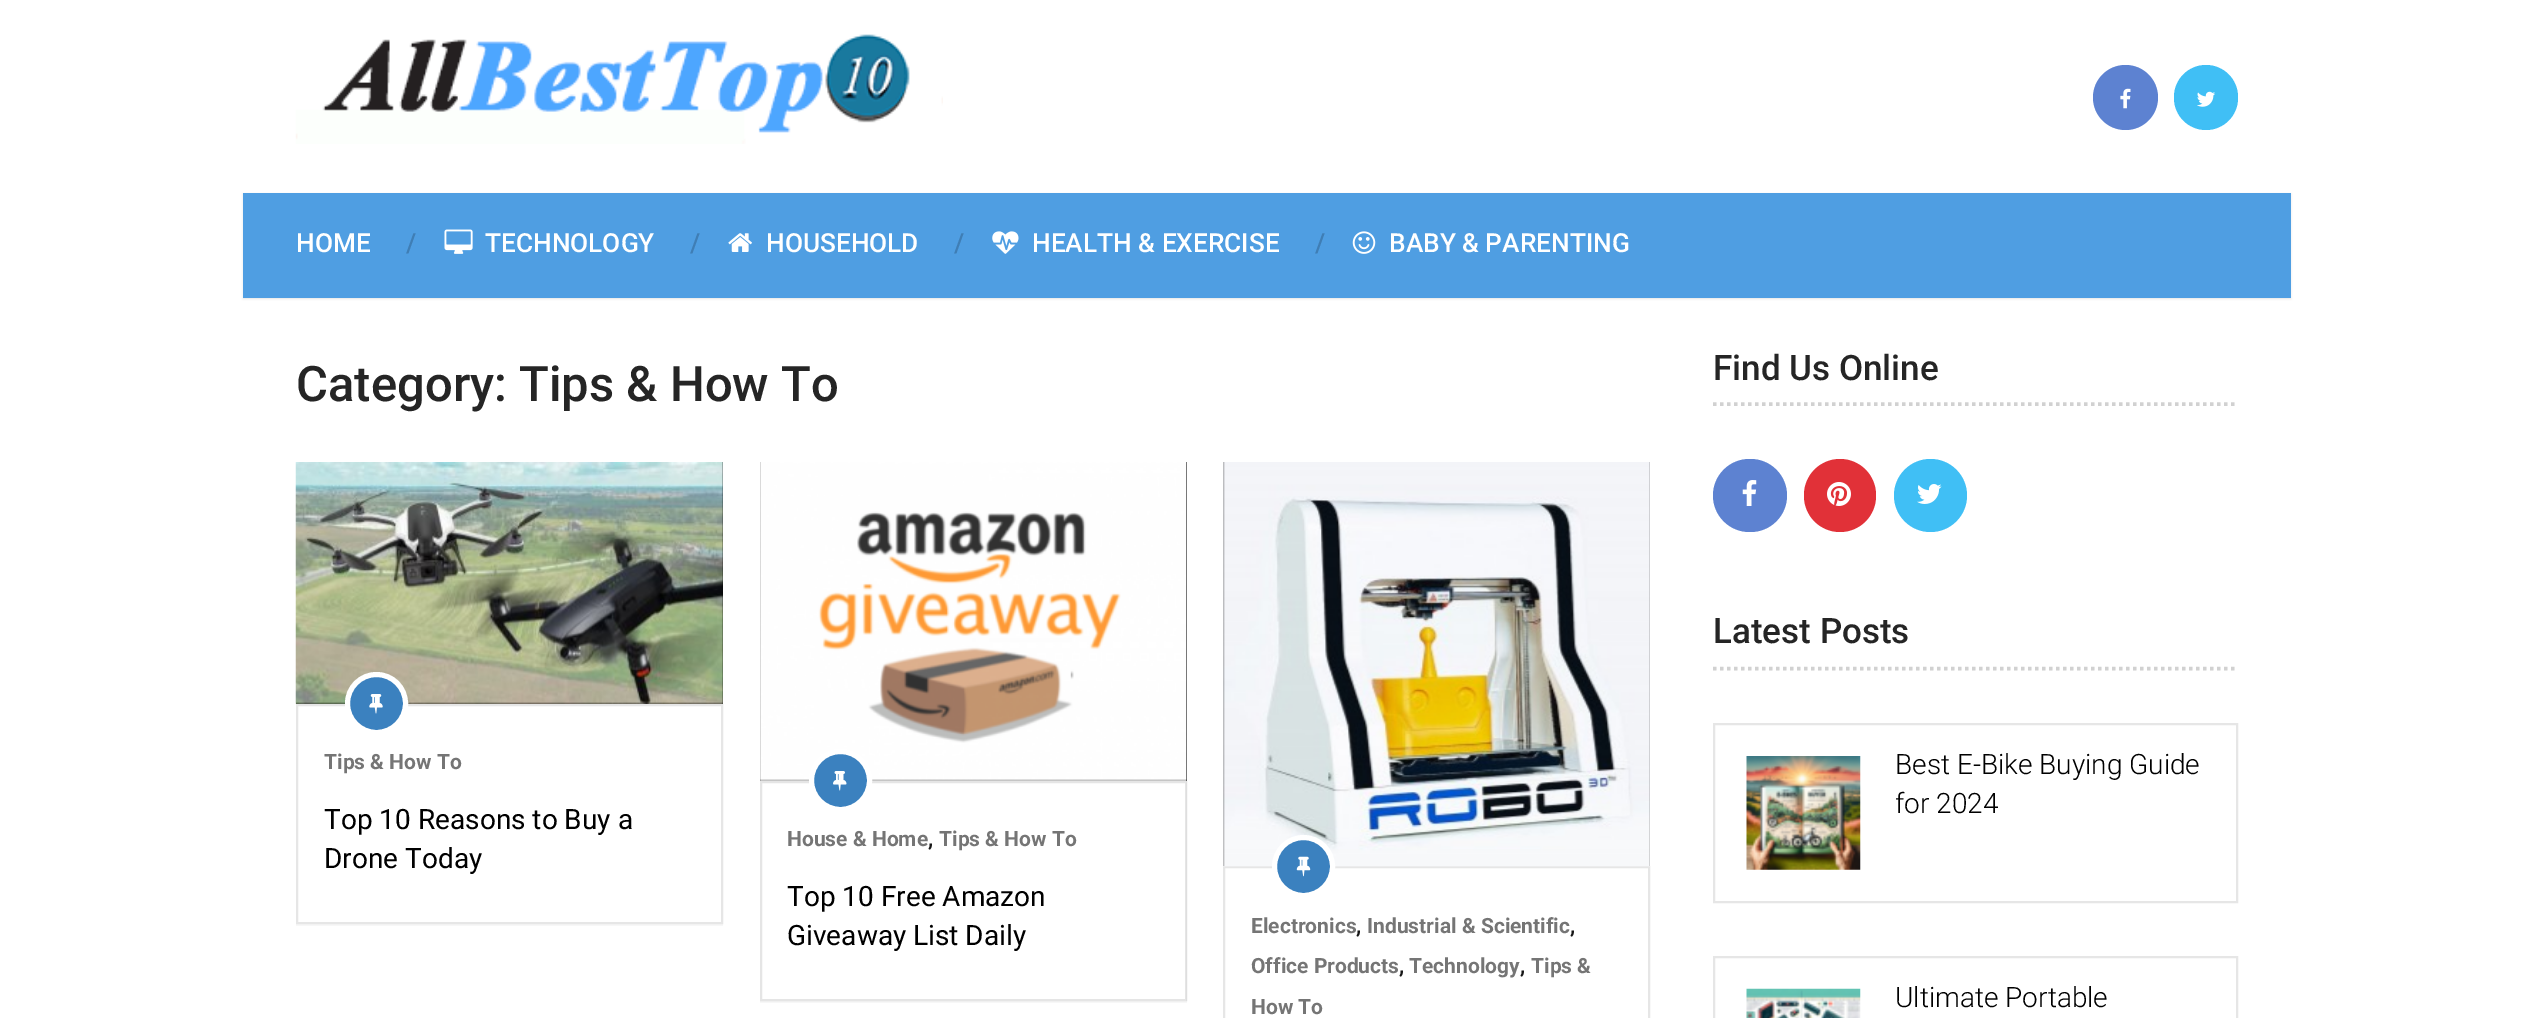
%!PS-Adobe-3.0
%%BoundingBox: 0 0 2533 1018
%%LanguageLevel: 3
%%Pages: 1
%%EndComments
%%BeginProlog
/setalpha { dup .setfillconstantalpha .setstrokeconstantalpha } def
/rrect { 5 dict begin { /r /h /w /y /x } { exch def } forall
  x r add y moveto x w add y 2 copy h add r arct x w add y h add x 1 index r arct
  x y h add x y r arct x y 2 copy exch w add exch r arct closepath end } def
/softshadow { 12 dict begin { /a /b /q /h /w /y /x } { exch def } forall gsave /was 0 def
  9 -2 -9 { dup b mul 4 div /e exch def 1 sub .425 mul 2.718 exch exp 1 add a .99 .min exch div /now exch def
    1 1 now sub 1 was sub div sub setalpha /was now def
    w h .min e 2 mul add 0 gt { x e sub y e sub w e 2 mul add h e 2 mul add
      q e add b .6 mul add w h .min 2 div e add .min 0 .max rrect fill } if } for grestore end } def
/drawimage { 5 dict begin { /h /w /y /x /name } { exch def } forall
  gsave x y translate w h scale
  w h 8 [w 0 0 h 0 0] name (r) file false 3 colorimage grestore end } def
%%EndProlog
%%BeginSetup
<< /PageSize [2533 1018] /PageUsesTransparency true >> setpagedevice
%%EndSetup
%%Page: 1 1
0 .pushpdf14devicefilter
0 1018 translate 1 -1 scale
4 setmiterlimit
1 setgray
0 0 2533 1018 rectfill
(images/1.raw) 295 34 648 110 drawimage
0.365 0.51 0.82 setrgbcolor
newpath 2125.5 97.5 32.5 0 360 arc closepath fill
(images/2.raw) 2120 88 11 21 drawimage
0.251 0.749 0.961 setrgbcolor
2174 65 64 65 32 rrect fill
(images/3.raw) 2197 91 19 16 drawimage
0 setgray
243 194 2048 105 0 1 0.1 softshadow
0.31 0.62 0.886 setrgbcolor
243 193 2048 105 rectfill
(images/4.raw) 444 229 29 25 drawimage
(images/5.raw) 728 233 24 19 drawimage
(images/6.raw) 992 231 27 23 drawimage
(images/7.raw) 1352 231 24 23 drawimage
0.969 setgray
newpath 296 924 moveto 296 926 lineto 723 926 lineto 723 464 lineto 723 924 lineto closepath fill
0 setgray
296 462 427 242 rectfill
(images/8.raw) 295 462 428 242 drawimage
0.902 setgray
2 setlinewidth
297 705 425 218 rectstroke
0.231 0.506 0.749 setrgbcolor
newpath 376.5 703.5 29 0 360 arc closepath gsave fill grestore
1 setgray
5 setlinewidth
stroke
(images/9.raw) 369 694 14 20 drawimage
0.969 setgray
newpath 760 1001 moveto 760 1003 lineto 1187 1003 lineto 1187 464 lineto 1186 464 lineto 1186 1001 lineto closepath fill
0 setgray
760 462 427 319 rectfill
(images/10.raw) 760 462 427 319 drawimage
0.1 setalpha
2 setlinewidth
761 782 425 218 rectstroke
1 setalpha
0.231 0.506 0.749 setrgbcolor
newpath 840.5 780.5 29 0 360 arc closepath gsave fill grestore
1 setgray
5 setlinewidth
stroke
(images/11.raw) 833 771 14 20 drawimage
0.902 setgray
2 setlinewidth
1224 867 425 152 rectstroke
(images/12.raw) 1223 462 427 405 drawimage
0.231 0.506 0.749 setrgbcolor
newpath 1303.5 866.5 29 0 360 arc closepath gsave fill grestore
1 setgray
5 setlinewidth
stroke
(images/13.raw) 1296 856 15 21 drawimage
0.82 setgray
3.5 setlinewidth
[3.5 3.5] 0 setdash
newpath 1713 404 moveto 2238 404 lineto stroke
0.365 0.51 0.82 setrgbcolor
1713 459 74 73 36.5 rrect fill
(images/14.raw) 1742 480 15 26 drawimage
0.882 0.192 0.22 setrgbcolor
1804 459 72 73 36 rrect fill
(images/15.raw) 1827 482 24 24 drawimage
0.251 0.749 0.961 setrgbcolor
newpath 1930.5 495.5 36.5 0 360 arc closepath fill
(images/16.raw) 1917 484 25 20 drawimage
0.82 setgray
newpath 1713 668.5 moveto 2238 668.5 lineto stroke
0.902 setgray
2 setlinewidth
[] 0 setdash
1714 724 523 178 rectstroke
(images/17.raw) 1746 756 115 114 drawimage
1714 957 523 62 rectstroke
(images/18.raw) 1746 988 115 30 drawimage
/Roboto-Medium [26.25 0 0 -26.25 0 0] selectfont
1 setgray
296 252 moveto (HOME) show
0.247 0.494 0.71 setrgbcolor
406 252 moveto (/) show
1 setgray
485 252 moveto (TECHNOLOGY) show
0.247 0.494 0.71 setrgbcolor
690 252 moveto (/) show
1 setgray
766 252 moveto (HOUSEHOLD) show
0.247 0.494 0.71 setrgbcolor
954 252 moveto (/) show
1 setgray
1032 252 moveto (HEALTH & EXERCISE) show
0.247 0.494 0.71 setrgbcolor
1315 252 moveto (/) show
1 setgray
1389 252 moveto (BABY & PARENTING) show
/Roboto-Medium [49 0 0 -49 0 0] selectfont
0.145 setgray
296 401 moveto (Category: Tips & How To) show
/Roboto-Bold [21 0 0 -21 0 0] selectfont
0.459 setgray
324 769 moveto (Tips & How To) show
/Roboto-Regular [28 0 0 -28 0 0] selectfont
0 setgray
324 829 moveto (Top 10 Reasons to Buy a) show
324 868 moveto (Drone Today) show
/Roboto-Bold [21 0 0 -21 0 0] selectfont
0.459 setgray
787 846 moveto (House & Home) show
0.086 setgray
928 846 moveto (,) show
0.459 setgray
939 846 moveto (Tips & How To) show
/Roboto-Regular [28 0 0 -28 0 0] selectfont
0 setgray
787 906 moveto (Top 10 Free Amazon) show
787 945 moveto (Giveaway List Daily) show
/Roboto-Bold [21 0 0 -21 0 0] selectfont
0.459 setgray
1251 933 moveto (Electronics) show
0.086 setgray
1356 933 moveto (,) show
0.459 setgray
1367 933 moveto (Industrial & Scientific) show
0.086 setgray
1570 933 moveto (,) show
0.459 setgray
1251 973 moveto (Office Products) show
0.086 setgray
1399 973 moveto (,) show
0.459 setgray
1409 973 moveto (Technology) show
0.086 setgray
1520 973 moveto (,) show
0.459 setgray
1531 973 moveto (Tips &) show
1251 1014 moveto (How To) show
/Roboto-Medium [35 0 0 -35 0 0] selectfont
0.145 setgray
1713 380 moveto (Find Us Online) show
1713 643 moveto (Latest Posts) show
/Roboto-Light [28 0 0 -28 0 0] selectfont
0 setgray
1895 774 moveto (Best E-Bike Buying Guide) show
1895 813 moveto (for 2024) show
1895 1007 moveto (Ultimate Portable) show
.poppdf14devicefilter showpage
%%EOF
